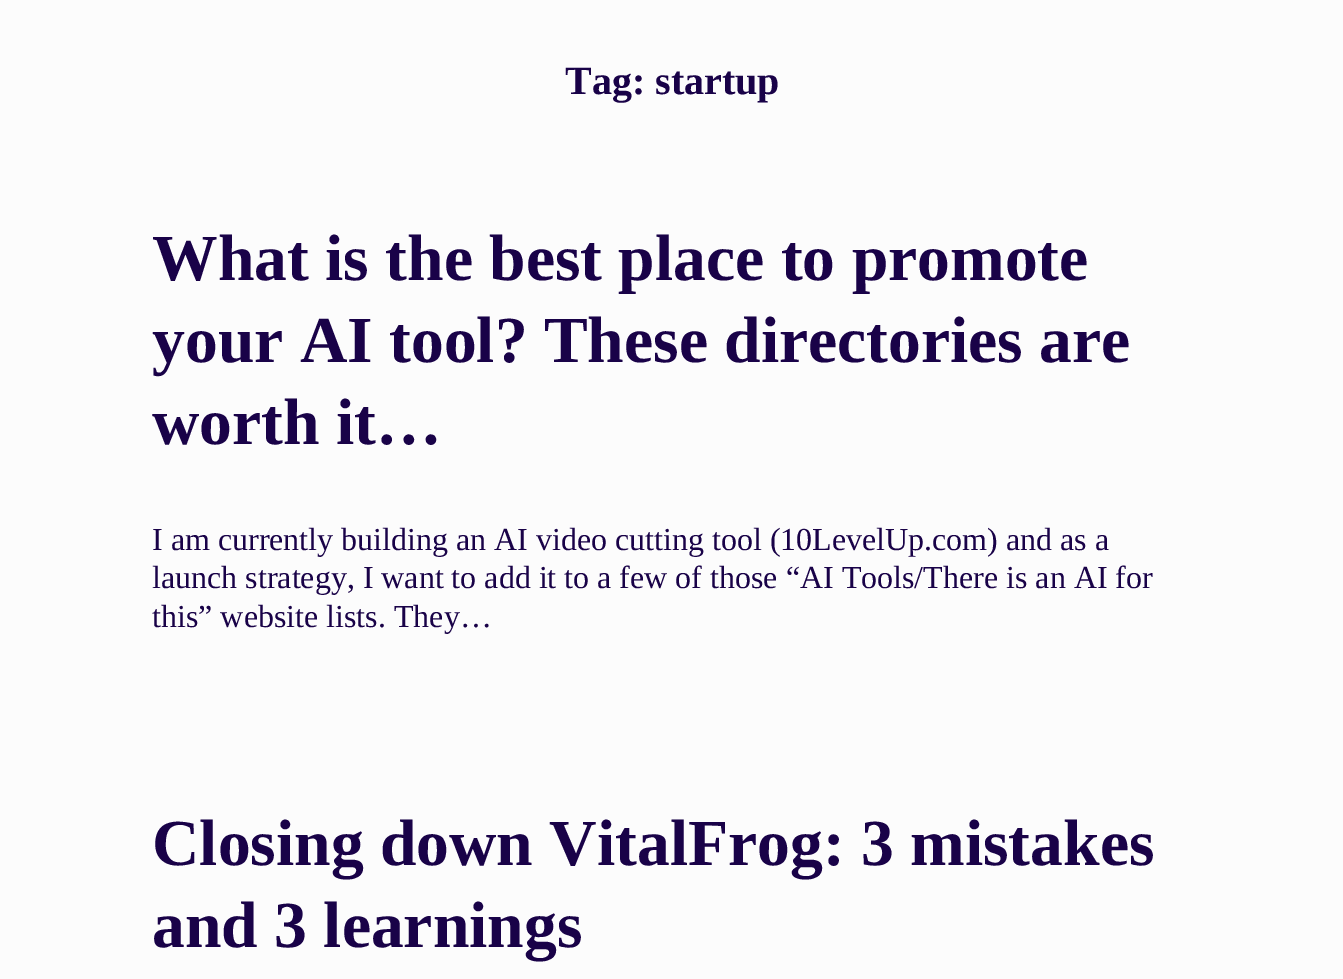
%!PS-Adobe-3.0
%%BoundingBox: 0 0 1343 979
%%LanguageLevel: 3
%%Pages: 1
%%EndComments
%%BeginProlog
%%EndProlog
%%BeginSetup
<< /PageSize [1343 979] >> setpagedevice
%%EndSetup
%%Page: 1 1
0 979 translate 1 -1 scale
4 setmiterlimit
0.988 setgray
0 0 1343 979 rectfill
/LiberationSerif-Bold [40 0 0 -40 0 0] selectfont
0.098 0.008 0.282 setrgbcolor
565 94 moveto (Tag: startup) show
/LiberationSerif-Bold [65.6 0 0 -65.6 0 0] selectfont
152 280 moveto (What is the best place to promote) show
152 362 moveto (your AI tool? These directories are) show
152 444 moveto (worth it…) show
/LiberationSerif-Regular [32 0 0 -32 0 0] selectfont
152 550 moveto (I am currently building an AI video cutting tool \(10LevelUp.com\) and as a) show
152 588 moveto (launch strategy, I want to add it to a few of those “AI Tools/There is an AI for) show
152 627 moveto (this” website lists. They…) show
/LiberationSerif-Bold [65.6 0 0 -65.6 0 0] selectfont
152 865 moveto (Closing down VitalFrog: 3 mistakes) show
152 947 moveto (and 3 learnings) show
showpage
%%EOF
